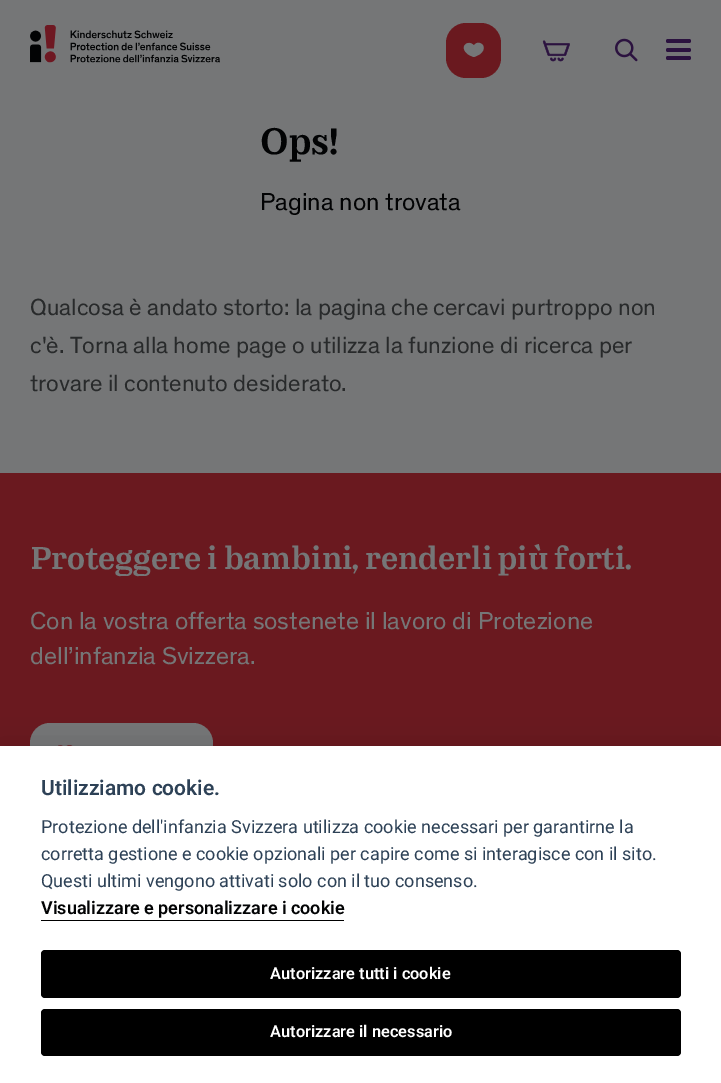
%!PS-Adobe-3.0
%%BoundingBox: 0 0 721 1083
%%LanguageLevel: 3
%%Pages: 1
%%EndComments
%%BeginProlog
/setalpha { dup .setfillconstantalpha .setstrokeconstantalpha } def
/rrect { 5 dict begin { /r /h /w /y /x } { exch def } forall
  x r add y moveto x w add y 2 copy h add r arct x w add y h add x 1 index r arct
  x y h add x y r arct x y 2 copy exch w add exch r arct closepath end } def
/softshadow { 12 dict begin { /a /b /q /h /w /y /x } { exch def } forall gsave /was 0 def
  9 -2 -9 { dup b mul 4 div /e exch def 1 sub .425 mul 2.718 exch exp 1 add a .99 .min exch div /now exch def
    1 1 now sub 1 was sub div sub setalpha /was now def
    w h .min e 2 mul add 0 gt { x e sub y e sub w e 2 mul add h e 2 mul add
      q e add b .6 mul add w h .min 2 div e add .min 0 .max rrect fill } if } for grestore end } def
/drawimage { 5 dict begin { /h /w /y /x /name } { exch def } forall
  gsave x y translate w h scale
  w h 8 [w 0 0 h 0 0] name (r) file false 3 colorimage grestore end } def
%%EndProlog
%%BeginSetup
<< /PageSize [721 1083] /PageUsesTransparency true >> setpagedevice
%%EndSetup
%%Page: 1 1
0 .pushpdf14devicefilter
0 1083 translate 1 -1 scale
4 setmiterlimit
0.459 0.463 0.467 setrgbcolor
0 0 721 1083 rectfill
(images/1.raw) 30 25 190 38 drawimage
0.416 0.098 0.122 setrgbcolor
446 23 55 55 20 rrect fill
0.459 0.463 0.467 setrgbcolor
newpath 474 45.5 moveto 478 38.5 490 46.5 479.5 54.5 curveto 478 55 475 57 473.5 57 curveto 469 55 lineto 457.5 47.5 468 38.5 474 45.5 curveto closepath fill
(images/2.raw) 542 40 28 22 drawimage
(images/3.raw) 615 38 23 24 drawimage
0.169 0.071 0.247 setrgbcolor
666 48 25 4 2 rrect fill
666 39 25 4 2 rrect fill
666 56 25 4 2 rrect fill
0.416 0.098 0.122 setrgbcolor
0 473 721 273 rectfill
0.459 0.463 0.467 setrgbcolor
30 723 183 58 20 rrect fill
0.416 0.098 0.122 setrgbcolor
newpath 65 748 moveto 69 741 81.5 749 70.5 757 curveto 69.5 757.5 66.5 759.5 65 759.5 curveto 60 757.5 lineto 49 750 59.5 741 65 748 curveto closepath fill
0.008 0.008 0.012 setrgbcolor
0 759 721 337 0 19 0.28 softshadow
1 setgray
0 746 721 337 rectfill
0 setgray
41 920 303 1 rectfill
41 950 640 48 4 rrect fill
41 1009 640 47 4 rrect fill
/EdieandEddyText-Medium [35 0 0 -35 0 0] selectfont
0.008 0.012 0.016 setrgbcolor
260 154 moveto (Ops!) show
/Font-Regular [25 0 0 -25 0 0] selectfont
260 210 moveto (Pagina non trovata) show
/Font-Regular [23.75 0 0 -23.75 0 0] selectfont
0.157 0.165 0.169 setrgbcolor
30 315 moveto (Qualcosa è andato storto: la pagina che cercavi purtroppo non) show
30 353 moveto (c'è. Torna alla home page o utilizza la funzione di ricerca per) show
30 391 moveto (trovare il contenuto desiderato.) show
/EdieandEddyText-Medium [30 0 0 -30 0 0] selectfont
0.459 0.463 0.467 setrgbcolor
30 569 moveto (Proteggere i bambini, renderli più forti.) show
/Font-Regular [25 0 0 -25 0 0] selectfont
30 629 moveto (Con la vostra offerta sostenete il lavoro di Protezione) show
30 664 moveto (dell’infanzia Svizzera.) show
/Roboto-SemiBold [21 0 0 -21 0 0] selectfont
0.176 0.255 0.337 setrgbcolor
41 795 moveto (Utilizziamo cookie.) show
/Roboto-Regular [18 0 0 -18 0 0] selectfont
41 833 moveto (Protezione dell'infanzia Svizzera utilizza cookie necessari per garantirne la) show
41 860 moveto (corretta gestione e cookie opzionali per capire come si interagisce con il sito.) show
41 887 moveto (Questi ultimi vengono attivati solo con il tuo consenso.) show
/Roboto-SemiBold [18 0 0 -18 0 0] selectfont
0.008 0.012 0.016 setrgbcolor
41 914 moveto (Visualizzare e personalizzare i cookie) show
/Roboto-SemiBold [16.4 0 0 -16.4 0 0] selectfont
1 setgray
270 979 moveto (Autorizzare tutti i cookie) show
270 1037 moveto (Autorizzare il necessario) show
.poppdf14devicefilter showpage
%%EOF
